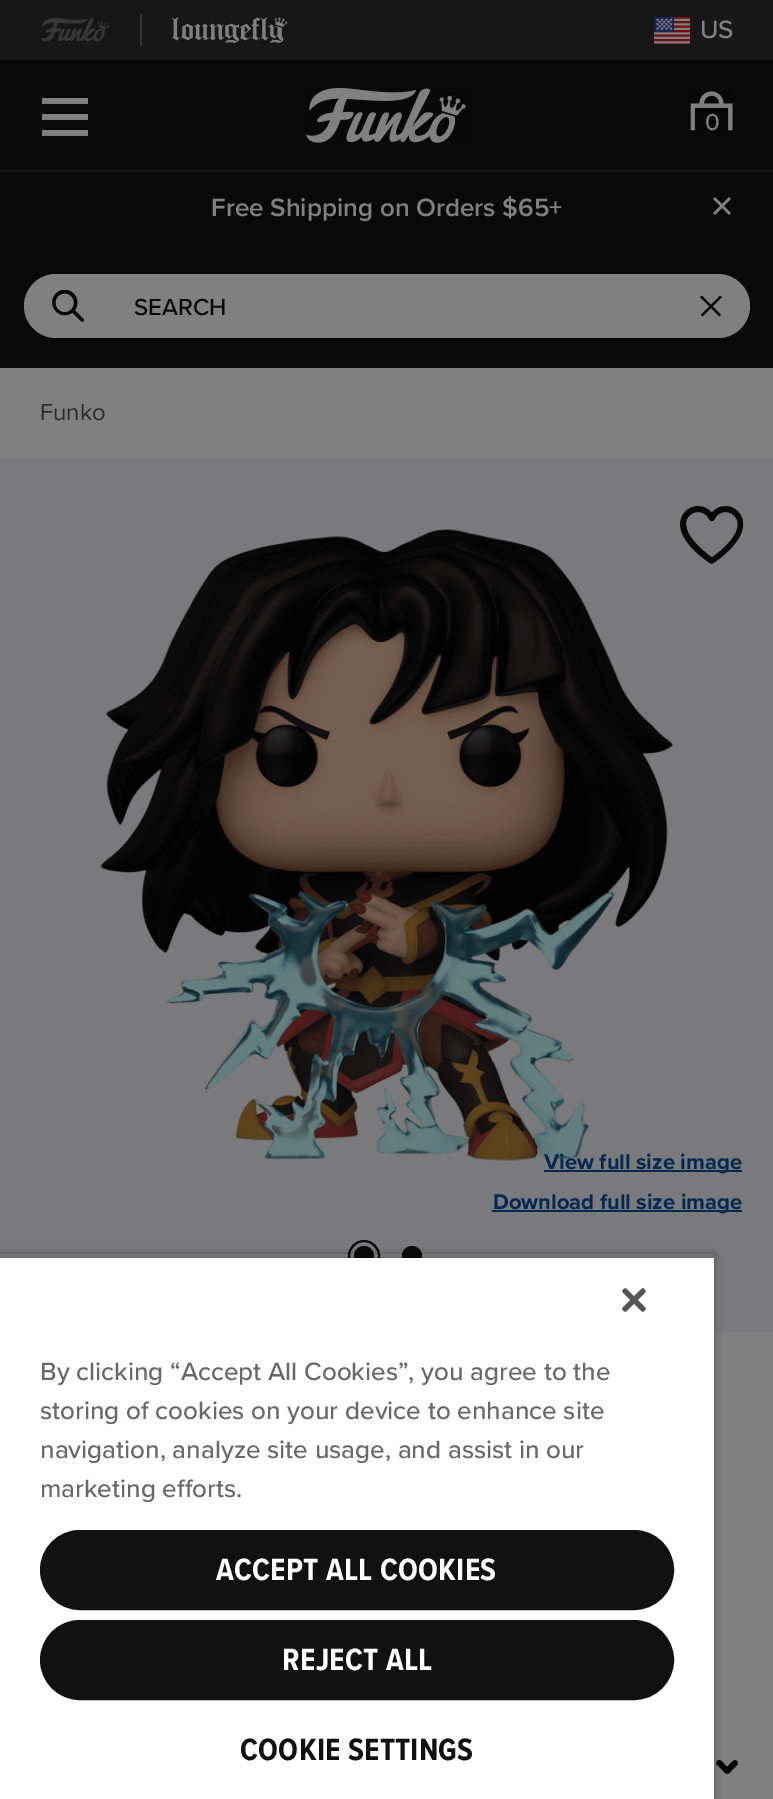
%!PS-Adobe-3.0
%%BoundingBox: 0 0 773 1799
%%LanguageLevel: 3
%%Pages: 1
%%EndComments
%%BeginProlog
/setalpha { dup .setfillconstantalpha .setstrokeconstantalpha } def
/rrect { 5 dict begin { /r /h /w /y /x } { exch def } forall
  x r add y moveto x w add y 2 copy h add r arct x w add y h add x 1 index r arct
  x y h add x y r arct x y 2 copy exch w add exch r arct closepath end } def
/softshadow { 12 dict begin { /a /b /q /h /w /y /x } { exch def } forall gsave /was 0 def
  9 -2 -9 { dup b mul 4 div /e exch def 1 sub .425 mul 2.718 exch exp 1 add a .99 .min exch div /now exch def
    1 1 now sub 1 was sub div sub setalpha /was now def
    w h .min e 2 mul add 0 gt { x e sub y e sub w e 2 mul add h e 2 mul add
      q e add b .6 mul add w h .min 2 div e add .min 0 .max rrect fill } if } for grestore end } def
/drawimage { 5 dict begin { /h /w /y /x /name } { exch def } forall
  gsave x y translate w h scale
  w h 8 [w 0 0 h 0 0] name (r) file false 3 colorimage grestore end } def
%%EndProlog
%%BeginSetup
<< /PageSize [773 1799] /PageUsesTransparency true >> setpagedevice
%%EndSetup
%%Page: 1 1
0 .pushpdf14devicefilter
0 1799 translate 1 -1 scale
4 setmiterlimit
0.502 setgray
0 0 773 1799 rectfill
0.035 setgray
0 60 773 308 rectfill
0.09 setgray
0 0 773 60 rectfill
(images/1.raw) 41 18 68 24 drawimage
0.212 setgray
140 14 2 32 rectfill
(images/2.raw) 172 17 116 26 drawimage
(images/3.raw) 654 17 36 27 drawimage
0.502 setgray
newpath 42 98 moveto 88 98 lineto 88 104 lineto 42 104 lineto closepath 42 114 moveto 88 114 lineto 88 120 lineto 42 120 lineto closepath 42 130 moveto 88 130 lineto 88 136 lineto 42 136 lineto closepath fill
(images/4.raw) 306 88 160 55 drawimage
(images/5.raw) 690 91 43 40 drawimage
24 274 726 64 32 rrect fill
(images/6.raw) 52 290 32 32 drawimage
(images/7.raw) 700 296 22 21 drawimage
0.09 setgray
0 170 773 2 rectfill
0.478 0.478 0.486 setrgbcolor
0 458 773 874 rectfill
(images/8.raw) 680 506 64 58 drawimage
(images/9.raw) 100 529 573 632 drawimage
0 0.157 0.314 setrgbcolor
544 1170 198 2 rectfill
492 1210 250 2 rectfill
0.035 setgray
newpath 364 1256 10 0 360 arc closepath fill
2 setlinewidth
newpath 364 1256 15 0 360 arc closepath stroke
newpath 412 1256 10 0 360 arc closepath fill
(images/10.raw) 716 1760 22 14 drawimage
gsave
newpath 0 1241 moveto 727 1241 lineto 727 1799 lineto 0 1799 lineto closepath 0 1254 moveto 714 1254 lineto 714 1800 lineto 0 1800 lineto closepath eoclip newpath
0 setgray
0 1254 714 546 0 4 0.35 softshadow
grestore
gsave
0 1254 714 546 rectclip
0 setgray
0 1258 714 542 0 4 0.2 softshadow
grestore
1 setgray
0 1258 714 541 rectfill
(images/11.raw) 622 1288 24 24 drawimage
0.067 setgray
42 1532 630 76 38 rrect gsave fill grestore
4 setlinewidth
stroke
42 1622 630 76 38 rrect gsave fill grestore
stroke
/ProximaNova-Medium [26 0 0 -26 0 0] selectfont
0.502 setgray
700 38 moveto (US) show
/ProximaNova-Medium [24 0 0 -24 0 0] selectfont
705 130 moveto (0) show
0.035 setgray
134 315 moveto (SEARCH) show
/ProximaNova-SemiBold [26 0 0 -26 0 0] selectfont
0.502 setgray
211 216 moveto (Free Shipping on Orders $65+) show
/ProximaNova-Medium [48 0 0 -48 0 0] selectfont
710 222 moveto (×) show
/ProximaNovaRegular-Regular [24 0 0 -24 0 0] selectfont
0.169 setgray
40 420 moveto (Funko) show
/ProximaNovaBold-Bold [22 0 0 -22 0 0] selectfont
0 0.157 0.314 setrgbcolor
544 1169 moveto (View full size image) show
493 1209 moveto (Download full size image) show
/ProximaNova-Medium [26 0 0 -26 0 0] selectfont
0.412 setgray
40 1380 moveto (By clicking “Accept All Cookies”, you agree to the) show
40 1419 moveto (storing of cookies on your device to enhance site) show
40 1458 moveto (navigation, analyze site usage, and assist in our) show
40 1497 moveto (marketing efforts.) show
/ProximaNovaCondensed-Bold [32 0 0 -32 0 0] selectfont
1 setgray
216 1580 moveto 0.3 0 (ACCEPT ALL COOKIES) ashow
282 1670 moveto 0.3 0 (REJECT ALL) ashow
0.067 setgray
240 1760 moveto 0.3 0 (COOKIE SETTINGS) ashow
.poppdf14devicefilter showpage
%%EOF
